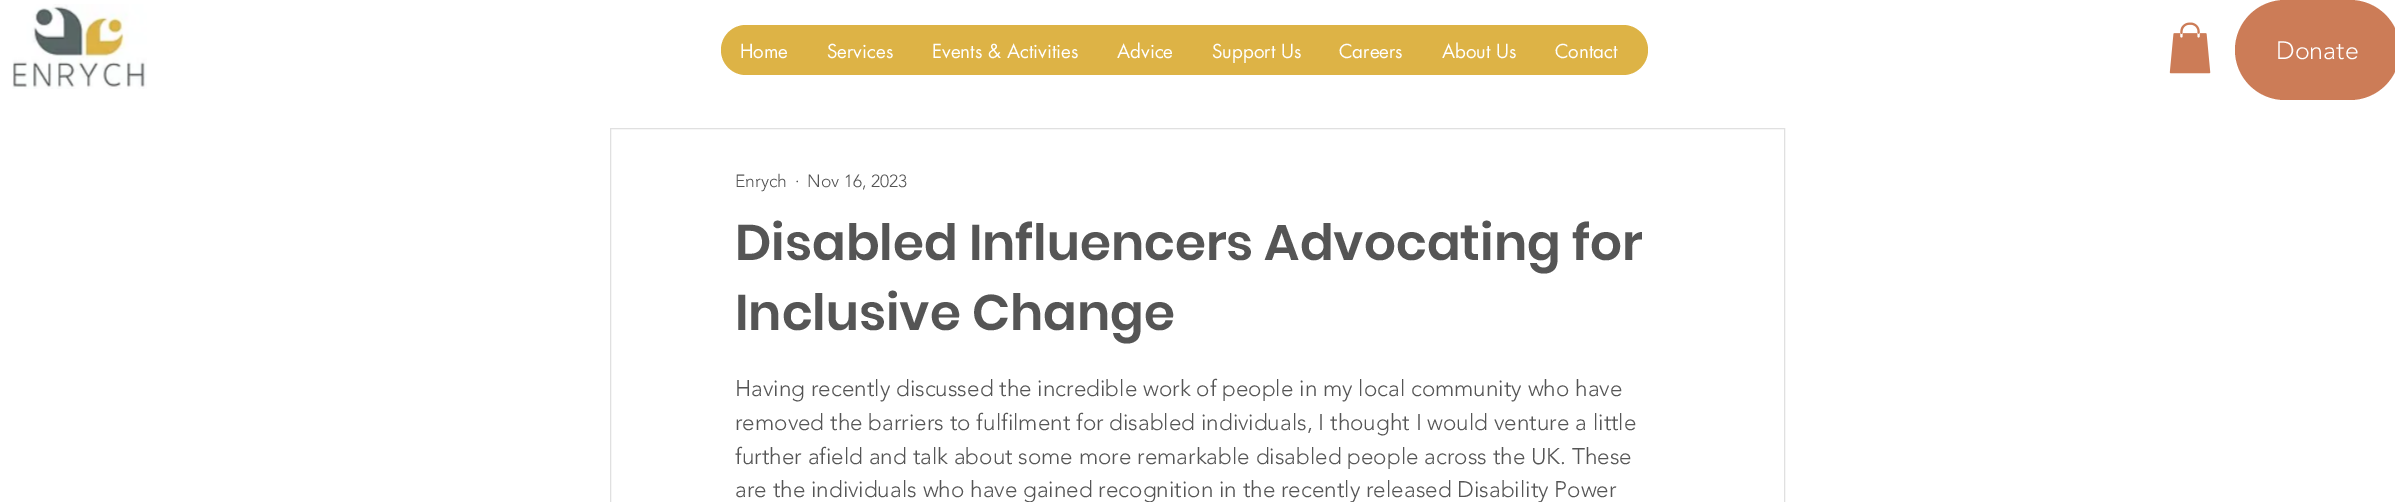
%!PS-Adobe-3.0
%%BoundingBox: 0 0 2395 502
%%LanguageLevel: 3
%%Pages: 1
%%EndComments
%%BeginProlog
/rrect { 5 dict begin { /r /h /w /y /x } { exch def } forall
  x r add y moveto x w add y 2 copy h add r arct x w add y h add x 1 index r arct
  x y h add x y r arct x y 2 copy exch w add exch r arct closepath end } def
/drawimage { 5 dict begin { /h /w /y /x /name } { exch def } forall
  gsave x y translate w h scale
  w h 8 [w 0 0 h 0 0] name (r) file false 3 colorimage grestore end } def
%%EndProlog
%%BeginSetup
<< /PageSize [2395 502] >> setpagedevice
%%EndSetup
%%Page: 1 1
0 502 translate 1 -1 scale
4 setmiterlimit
1 setgray
0 0 2395 502 rectfill
(images/1.raw) 12 4 135 85 drawimage
0.867 0.702 0.275 setrgbcolor
721 25 927 50 25 rrect fill
(images/2.raw) 2169 22 42 52 drawimage
0.8 0.486 0.341 setrgbcolor
2235 0 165 100 50 rrect fill
0.878 setgray
610.5 128.5 1174 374 rectstroke
/futura-Regular [18.75 0 0 -18.75 0 0] selectfont
1 setgray
740 58 moveto (Home) show
827 58 moveto (Services) show
932 58 moveto (Events & Activities) show
1117 58 moveto (Advice) show
1212 58 moveto (Support Us) show
1339 58 moveto (Careers) show
1442 58 moveto (About Us) show
1555 58 moveto (Contact) show
/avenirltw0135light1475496-Light [25 0 0 -25 0 0] selectfont
2276 59 moveto (Donate) show
/avenirltw0135light1475496-Light [17.5 0 0 -17.5 0 0] selectfont
0.333 setgray
735 187 moveto (Enrych) show
795 187 moveto (·) show
807 187 moveto (Nov 16, 2023) show
/Poppins-SemiBold [50 0 0 -50 0 0] selectfont
735 260 moveto (Disabled Influencers Advocating for) show
735 330 moveto (Inclusive Change) show
/avenirltw0135light1475496-Light [22.5 0 0 -22.5 0 0] selectfont
735 396 moveto (Having recently discussed the incredible work of people in my local community who have) show
735 430 moveto (removed the barriers to fulfilment for disabled individuals, I thought I would venture a little) show
735 464 moveto (further afield and talk about some more remarkable disabled people across the UK. These) show
735 497 moveto (are the individuals who have gained recognition in the recently released Disability Power) show
showpage
%%EOF
